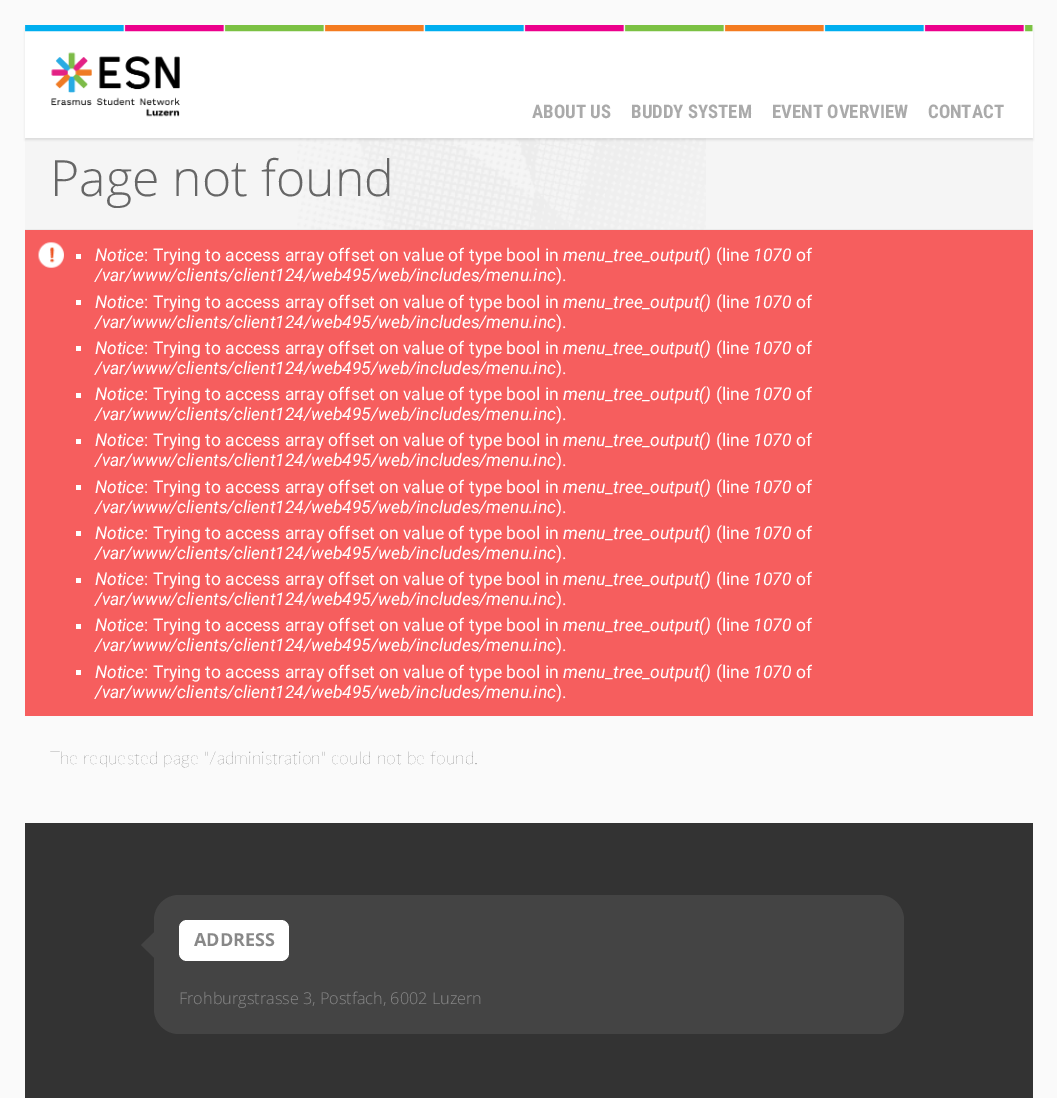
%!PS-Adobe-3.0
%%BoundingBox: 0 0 1057 1098
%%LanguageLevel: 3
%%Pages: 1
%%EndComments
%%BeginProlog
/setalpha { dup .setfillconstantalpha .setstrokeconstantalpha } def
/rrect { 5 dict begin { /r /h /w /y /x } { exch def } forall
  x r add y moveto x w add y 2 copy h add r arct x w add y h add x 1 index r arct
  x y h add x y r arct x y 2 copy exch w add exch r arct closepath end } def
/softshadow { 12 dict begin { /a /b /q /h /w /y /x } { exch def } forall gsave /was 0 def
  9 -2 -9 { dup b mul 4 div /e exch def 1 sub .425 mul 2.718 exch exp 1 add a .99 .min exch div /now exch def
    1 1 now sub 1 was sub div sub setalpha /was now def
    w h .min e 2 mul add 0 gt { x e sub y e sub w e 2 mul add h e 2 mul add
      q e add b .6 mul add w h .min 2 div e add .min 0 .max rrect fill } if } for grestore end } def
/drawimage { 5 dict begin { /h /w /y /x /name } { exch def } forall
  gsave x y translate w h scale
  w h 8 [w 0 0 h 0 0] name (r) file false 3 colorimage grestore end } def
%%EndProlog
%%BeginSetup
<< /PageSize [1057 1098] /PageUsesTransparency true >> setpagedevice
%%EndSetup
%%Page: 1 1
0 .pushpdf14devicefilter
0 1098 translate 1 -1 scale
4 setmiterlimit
0.98 setgray
0 0 1057 1098 rectfill
0.961 setgray
25 138 1008 92 rectfill
(images/3.raw) 297 138 409 92 drawimage
0 setgray
25 28 1008 112 0 1 0.1 softshadow
1 setgray
25 25 1008 113 rectfill
(images/1.raw) 25 25 1008 7 drawimage
(images/2.raw) 51 52 129 65 drawimage
0.04 setalpha
0 setgray
25 229 1008 1 rectfill
1 setalpha
0.965 0.369 0.369 setrgbcolor
25 230 1008 486 rectfill
(images/4.raw) 38 242 26 26 drawimage
1 setgray
76 254 5 5 rectfill
76 300 5 5 rectfill
76 346 5 5 rectfill
76 393 5 5 rectfill
76 439 5 5 rectfill
76 485 5 5 rectfill
76 531 5 5 rectfill
76 578 5 5 rectfill
76 624 5 5 rectfill
76 670 5 5 rectfill
0.2 setgray
25 823 1008 275 rectfill
0.267 setgray
154 895 750 139 25 rrect fill
newpath 154 932.5 moveto 154 957.5 lineto 141 945 lineto closepath fill
1 setgray
179 920 110 41 8 rrect fill
/RobotoCondensed-Bold [18.75 0 0 -18.75 0 0] selectfont
0.667 setgray
532 118 moveto (ABOUT US) show
631 118 moveto (BUDDY SYSTEM) show
772 118 moveto (EVENT OVERVIEW) show
928 118 moveto (CONTACT) show
/OpenSans-Light [50 0 0 -50 0 0] selectfont
0.4 setgray
50 196 moveto (Page not found) show
/Roboto-Italic [17.5 0 0 -17.5 0 0] selectfont
1 setgray
95 261 moveto (Notice) show
/Roboto-Regular [17.5 0 0 -17.5 0 0] selectfont
144 261 moveto (: Trying to access array offset on value of type bool in) show
/Roboto-Italic [17.5 0 0 -17.5 0 0] selectfont
563 261 moveto (menu_tree_output\(\)) show
/Roboto-Regular [17.5 0 0 -17.5 0 0] selectfont
716 261 moveto (\(line) show
/Roboto-Italic [17.5 0 0 -17.5 0 0] selectfont
753 261 moveto (1070) show
/Roboto-Regular [17.5 0 0 -17.5 0 0] selectfont
796 261 moveto (of) show
/Roboto-Italic [17.5 0 0 -17.5 0 0] selectfont
95 281 moveto (/var/www/clients/client124/web495/web/includes/menu.inc) show
/Roboto-Regular [17.5 0 0 -17.5 0 0] selectfont
556 281 moveto (\).) show
/Roboto-Italic [17.5 0 0 -17.5 0 0] selectfont
95 308 moveto (Notice) show
/Roboto-Regular [17.5 0 0 -17.5 0 0] selectfont
144 308 moveto (: Trying to access array offset on value of type bool in) show
/Roboto-Italic [17.5 0 0 -17.5 0 0] selectfont
563 308 moveto (menu_tree_output\(\)) show
/Roboto-Regular [17.5 0 0 -17.5 0 0] selectfont
716 308 moveto (\(line) show
/Roboto-Italic [17.5 0 0 -17.5 0 0] selectfont
753 308 moveto (1070) show
/Roboto-Regular [17.5 0 0 -17.5 0 0] selectfont
796 308 moveto (of) show
/Roboto-Italic [17.5 0 0 -17.5 0 0] selectfont
95 328 moveto (/var/www/clients/client124/web495/web/includes/menu.inc) show
/Roboto-Regular [17.5 0 0 -17.5 0 0] selectfont
556 328 moveto (\).) show
/Roboto-Italic [17.5 0 0 -17.5 0 0] selectfont
95 354 moveto (Notice) show
/Roboto-Regular [17.5 0 0 -17.5 0 0] selectfont
144 354 moveto (: Trying to access array offset on value of type bool in) show
/Roboto-Italic [17.5 0 0 -17.5 0 0] selectfont
563 354 moveto (menu_tree_output\(\)) show
/Roboto-Regular [17.5 0 0 -17.5 0 0] selectfont
716 354 moveto (\(line) show
/Roboto-Italic [17.5 0 0 -17.5 0 0] selectfont
753 354 moveto (1070) show
/Roboto-Regular [17.5 0 0 -17.5 0 0] selectfont
796 354 moveto (of) show
/Roboto-Italic [17.5 0 0 -17.5 0 0] selectfont
95 374 moveto (/var/www/clients/client124/web495/web/includes/menu.inc) show
/Roboto-Regular [17.5 0 0 -17.5 0 0] selectfont
556 374 moveto (\).) show
/Roboto-Italic [17.5 0 0 -17.5 0 0] selectfont
95 400 moveto (Notice) show
/Roboto-Regular [17.5 0 0 -17.5 0 0] selectfont
144 400 moveto (: Trying to access array offset on value of type bool in) show
/Roboto-Italic [17.5 0 0 -17.5 0 0] selectfont
563 400 moveto (menu_tree_output\(\)) show
/Roboto-Regular [17.5 0 0 -17.5 0 0] selectfont
716 400 moveto (\(line) show
/Roboto-Italic [17.5 0 0 -17.5 0 0] selectfont
753 400 moveto (1070) show
/Roboto-Regular [17.5 0 0 -17.5 0 0] selectfont
796 400 moveto (of) show
/Roboto-Italic [17.5 0 0 -17.5 0 0] selectfont
95 420 moveto (/var/www/clients/client124/web495/web/includes/menu.inc) show
/Roboto-Regular [17.5 0 0 -17.5 0 0] selectfont
556 420 moveto (\).) show
/Roboto-Italic [17.5 0 0 -17.5 0 0] selectfont
95 446 moveto (Notice) show
/Roboto-Regular [17.5 0 0 -17.5 0 0] selectfont
144 446 moveto (: Trying to access array offset on value of type bool in) show
/Roboto-Italic [17.5 0 0 -17.5 0 0] selectfont
563 446 moveto (menu_tree_output\(\)) show
/Roboto-Regular [17.5 0 0 -17.5 0 0] selectfont
716 446 moveto (\(line) show
/Roboto-Italic [17.5 0 0 -17.5 0 0] selectfont
753 446 moveto (1070) show
/Roboto-Regular [17.5 0 0 -17.5 0 0] selectfont
796 446 moveto (of) show
/Roboto-Italic [17.5 0 0 -17.5 0 0] selectfont
95 466 moveto (/var/www/clients/client124/web495/web/includes/menu.inc) show
/Roboto-Regular [17.5 0 0 -17.5 0 0] selectfont
556 466 moveto (\).) show
/Roboto-Italic [17.5 0 0 -17.5 0 0] selectfont
95 493 moveto (Notice) show
/Roboto-Regular [17.5 0 0 -17.5 0 0] selectfont
144 493 moveto (: Trying to access array offset on value of type bool in) show
/Roboto-Italic [17.5 0 0 -17.5 0 0] selectfont
563 493 moveto (menu_tree_output\(\)) show
/Roboto-Regular [17.5 0 0 -17.5 0 0] selectfont
716 493 moveto (\(line) show
/Roboto-Italic [17.5 0 0 -17.5 0 0] selectfont
753 493 moveto (1070) show
/Roboto-Regular [17.5 0 0 -17.5 0 0] selectfont
796 493 moveto (of) show
/Roboto-Italic [17.5 0 0 -17.5 0 0] selectfont
95 513 moveto (/var/www/clients/client124/web495/web/includes/menu.inc) show
/Roboto-Regular [17.5 0 0 -17.5 0 0] selectfont
556 513 moveto (\).) show
/Roboto-Italic [17.5 0 0 -17.5 0 0] selectfont
95 539 moveto (Notice) show
/Roboto-Regular [17.5 0 0 -17.5 0 0] selectfont
144 539 moveto (: Trying to access array offset on value of type bool in) show
/Roboto-Italic [17.5 0 0 -17.5 0 0] selectfont
563 539 moveto (menu_tree_output\(\)) show
/Roboto-Regular [17.5 0 0 -17.5 0 0] selectfont
716 539 moveto (\(line) show
/Roboto-Italic [17.5 0 0 -17.5 0 0] selectfont
753 539 moveto (1070) show
/Roboto-Regular [17.5 0 0 -17.5 0 0] selectfont
796 539 moveto (of) show
/Roboto-Italic [17.5 0 0 -17.5 0 0] selectfont
95 559 moveto (/var/www/clients/client124/web495/web/includes/menu.inc) show
/Roboto-Regular [17.5 0 0 -17.5 0 0] selectfont
556 559 moveto (\).) show
/Roboto-Italic [17.5 0 0 -17.5 0 0] selectfont
95 585 moveto (Notice) show
/Roboto-Regular [17.5 0 0 -17.5 0 0] selectfont
144 585 moveto (: Trying to access array offset on value of type bool in) show
/Roboto-Italic [17.5 0 0 -17.5 0 0] selectfont
563 585 moveto (menu_tree_output\(\)) show
/Roboto-Regular [17.5 0 0 -17.5 0 0] selectfont
716 585 moveto (\(line) show
/Roboto-Italic [17.5 0 0 -17.5 0 0] selectfont
753 585 moveto (1070) show
/Roboto-Regular [17.5 0 0 -17.5 0 0] selectfont
796 585 moveto (of) show
/Roboto-Italic [17.5 0 0 -17.5 0 0] selectfont
95 605 moveto (/var/www/clients/client124/web495/web/includes/menu.inc) show
/Roboto-Regular [17.5 0 0 -17.5 0 0] selectfont
556 605 moveto (\).) show
/Roboto-Italic [17.5 0 0 -17.5 0 0] selectfont
95 631 moveto (Notice) show
/Roboto-Regular [17.5 0 0 -17.5 0 0] selectfont
144 631 moveto (: Trying to access array offset on value of type bool in) show
/Roboto-Italic [17.5 0 0 -17.5 0 0] selectfont
563 631 moveto (menu_tree_output\(\)) show
/Roboto-Regular [17.5 0 0 -17.5 0 0] selectfont
716 631 moveto (\(line) show
/Roboto-Italic [17.5 0 0 -17.5 0 0] selectfont
753 631 moveto (1070) show
/Roboto-Regular [17.5 0 0 -17.5 0 0] selectfont
796 631 moveto (of) show
/Roboto-Italic [17.5 0 0 -17.5 0 0] selectfont
95 651 moveto (/var/www/clients/client124/web495/web/includes/menu.inc) show
/Roboto-Regular [17.5 0 0 -17.5 0 0] selectfont
556 651 moveto (\).) show
/Roboto-Italic [17.5 0 0 -17.5 0 0] selectfont
95 678 moveto (Notice) show
/Roboto-Regular [17.5 0 0 -17.5 0 0] selectfont
144 678 moveto (: Trying to access array offset on value of type bool in) show
/Roboto-Italic [17.5 0 0 -17.5 0 0] selectfont
563 678 moveto (menu_tree_output\(\)) show
/Roboto-Regular [17.5 0 0 -17.5 0 0] selectfont
716 678 moveto (\(line) show
/Roboto-Italic [17.5 0 0 -17.5 0 0] selectfont
753 678 moveto (1070) show
/Roboto-Regular [17.5 0 0 -17.5 0 0] selectfont
796 678 moveto (of) show
/Roboto-Italic [17.5 0 0 -17.5 0 0] selectfont
95 698 moveto (/var/www/clients/client124/web495/web/includes/menu.inc) show
/Roboto-Regular [17.5 0 0 -17.5 0 0] selectfont
556 698 moveto (\).) show
/Lato-ExtraLight [17.5 0 0 -17.5 0 0] selectfont
0.4 setgray
50 764 moveto (The requested page "/administration" could not be found.) show
/OpenSans-Bold [18 0 0 -18 0 0] selectfont
0.533 setgray
194 946 moveto (ADDRESS) show
/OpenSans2-Light [16.25 0 0 -16.25 0 0] selectfont
179 1004 moveto (Frohburgstrasse 3, Postfach, 6002 Luzern) show
.poppdf14devicefilter showpage
%%EOF
